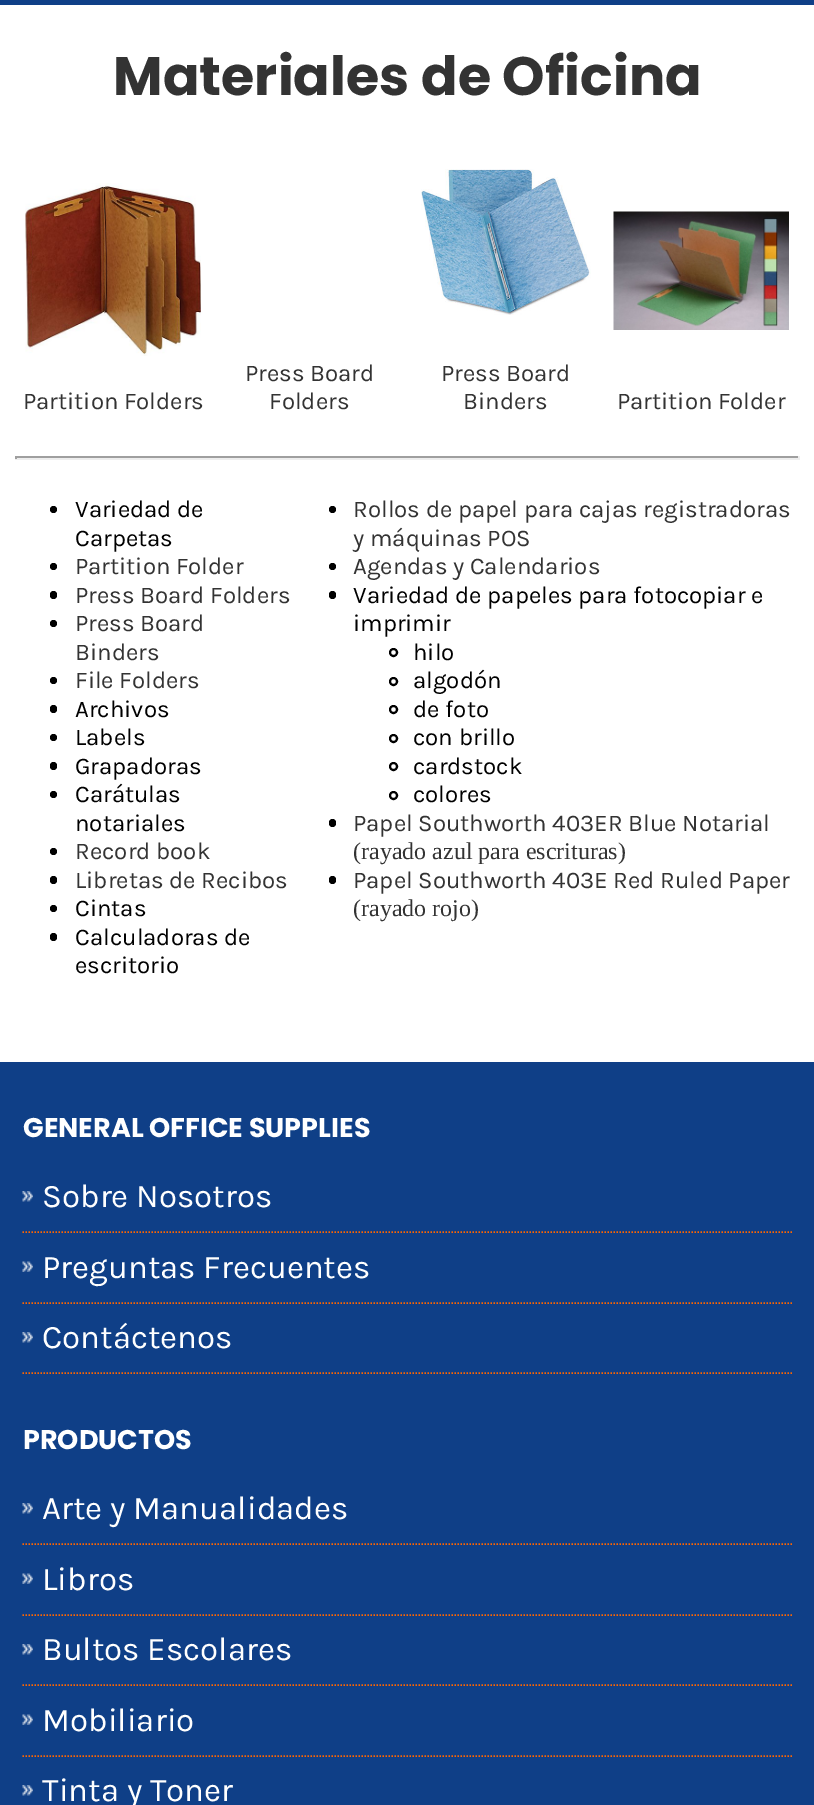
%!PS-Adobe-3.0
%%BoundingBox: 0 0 814 1805
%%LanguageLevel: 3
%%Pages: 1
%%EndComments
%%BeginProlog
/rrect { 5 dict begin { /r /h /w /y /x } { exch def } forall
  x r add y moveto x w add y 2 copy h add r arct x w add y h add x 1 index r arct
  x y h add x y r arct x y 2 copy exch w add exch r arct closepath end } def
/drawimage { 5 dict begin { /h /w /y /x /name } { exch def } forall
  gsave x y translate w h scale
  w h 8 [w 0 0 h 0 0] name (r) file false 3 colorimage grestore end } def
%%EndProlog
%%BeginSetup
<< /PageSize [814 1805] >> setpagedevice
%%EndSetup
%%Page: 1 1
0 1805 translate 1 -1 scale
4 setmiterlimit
1 setgray
0 0 814 1805 rectfill
0.059 0.247 0.529 setrgbcolor
0 0 814 5 rectfill
(images/1.raw) 25 183 176 173 drawimage
(images/2.raw) 421 169 170 146 drawimage
(images/3.raw) 613 211 176 119 drawimage
0.624 setgray
15 456 785 2 rectfill
0.933 setgray
798 456 2 3 rectfill
15 458 785 2 rectfill
0.624 setgray
15 456 2 3 rectfill
0 setgray
newpath 53.5 509.5 3.5 0 360 arc closepath fill
newpath 53.5 566.5 3.5 0 360 arc closepath fill
50 591 7 8 3.5 rrect fill
newpath 53.5 623.5 3.5 0 360 arc closepath fill
newpath 53.5 680.5 3.5 0 360 arc closepath fill
50 705 7 8 3.5 rrect fill
newpath 53.5 737.5 3.5 0 360 arc closepath fill
50 762 7 8 3.5 rrect fill
newpath 53.5 794.5 3.5 0 360 arc closepath fill
newpath 53.5 851.5 3.5 0 360 arc closepath fill
50 876 7 8 3.5 rrect fill
newpath 53.5 908.5 3.5 0 360 arc closepath fill
50 933 7 8 3.5 rrect fill
newpath 332.5 509.5 3.5 0 360 arc closepath fill
newpath 332.5 566.5 3.5 0 360 arc closepath fill
329 591 7 8 3.5 rrect fill
2 setlinewidth
newpath 393.5 652.5 3.5 0 360 arc closepath stroke
newpath 393.5 681.5 3.5 0 360 arc closepath stroke
newpath 393.5 709.5 3.5 0 360 arc closepath stroke
newpath 393.5 738.5 3.5 0 360 arc closepath stroke
newpath 393.5 766.5 3.5 0 360 arc closepath stroke
newpath 393.5 795.5 3.5 0 360 arc closepath stroke
329 819 7 8 3.5 rrect fill
329 876 7 8 3.5 rrect fill
0.059 0.247 0.529 setrgbcolor
0 1062 814 743 rectfill
(images/4.raw) 22 1191 11 11 drawimage
1 0.4 0 setrgbcolor
1.5 setlinewidth
[1.5 1.5] 0 setdash
newpath 22.5 1232 moveto 792 1232 lineto stroke
(images/5.raw) 22 1261 11 11 drawimage
newpath 22.5 1303 moveto 792 1303 lineto stroke
(images/4.raw) 22 1332 11 11 drawimage
newpath 22.5 1373 moveto 792 1373 lineto stroke
(images/4.raw) 22 1503 11 11 drawimage
newpath 22.5 1544 moveto 792 1544 lineto stroke
(images/5.raw) 22 1573 11 11 drawimage
newpath 22.5 1615 moveto 792 1615 lineto stroke
(images/4.raw) 22 1644 11 11 drawimage
newpath 22.5 1685 moveto 792 1685 lineto stroke
(images/5.raw) 22 1714 11 11 drawimage
newpath 22.5 1756 moveto 792 1756 lineto stroke
(images/4.raw) 22 1785 11 11 drawimage
/Poppins-Bold [54 0 0 -54 0 0] selectfont
0.2 setgray
113 95 moveto (Materiales de Oficina) show
/Karla-Regular [24 0 0 -24 0 0] selectfont
23 409 moveto (Partition Folders) show
245 381 moveto (Press Board) show
269 409 moveto (Folders) show
441 381 moveto (Press Board) show
463 409 moveto (Binders) show
617 409 moveto (Partition Folder) show
0 setgray
75 517 moveto (Variedad de) show
75 546 moveto (Carpetas) show
0.2 setgray
75 574 moveto (Partition Folder) show
75 603 moveto (Press Board Folders) show
75 631 moveto (Press Board) show
75 660 moveto (Binders) show
75 688 moveto (File Folders) show
0 setgray
75 717 moveto (Archivos) show
75 745 moveto (Labels) show
75 774 moveto (Grapadoras) show
75 802 moveto (Carátulas) show
75 831 moveto (notariales) show
0.2 setgray
75 859 moveto (Record book) show
75 888 moveto (Libretas de Recibos) show
0 setgray
75 916 moveto (Cintas) show
75 945 moveto (Calculadoras de) show
75 973 moveto (escritorio) show
0.2 setgray
353 517 moveto (Rollos de papel para cajas registradoras) show
353 546 moveto (y máquinas POS) show
353 574 moveto (Agendas y Calendarios) show
0 setgray
353 603 moveto (Variedad de papeles para fotocopiar e) show
353 631 moveto (imprimir) show
413 660 moveto (hilo) show
413 688 moveto (algodón) show
413 717 moveto (de foto) show
413 745 moveto (con brillo) show
413 774 moveto (cardstock) show
413 802 moveto (colores) show
0.2 setgray
353 831 moveto (Papel Southworth 403ER Blue Notarial) show
/LiberationSerif-Regular [24 0 0 -24 0 0] selectfont
353 859 moveto (\(rayado azul para escrituras\)) show
/Karla-Regular [24 0 0 -24 0 0] selectfont
353 888 moveto (Papel Southworth 403E Red Ruled Paper) show
/LiberationSerif-Regular [24 0 0 -24 0 0] selectfont
353 916 moveto (\(rayado rojo\)) show
/Poppins-Bold [27 0 0 -27 0 0] selectfont
1 setgray
23 1137 moveto (GENERAL OFFICE SUPPLIES) show
/Karla-Regular [33 0 0 -33 0 0] selectfont
42 1207 moveto (Sobre Nosotros) show
42 1278 moveto (Preguntas Frecuentes) show
42 1348 moveto (Contáctenos) show
/Poppins-Bold [27 0 0 -27 0 0] selectfont
23 1449 moveto (PRODUCTOS) show
/Karla-Regular [33 0 0 -33 0 0] selectfont
42 1519 moveto (Arte y Manualidades) show
42 1590 moveto (Libros) show
42 1660 moveto (Bultos Escolares) show
42 1731 moveto (Mobiliario) show
42 1801 moveto (Tinta y Toner) show
showpage
%%EOF
